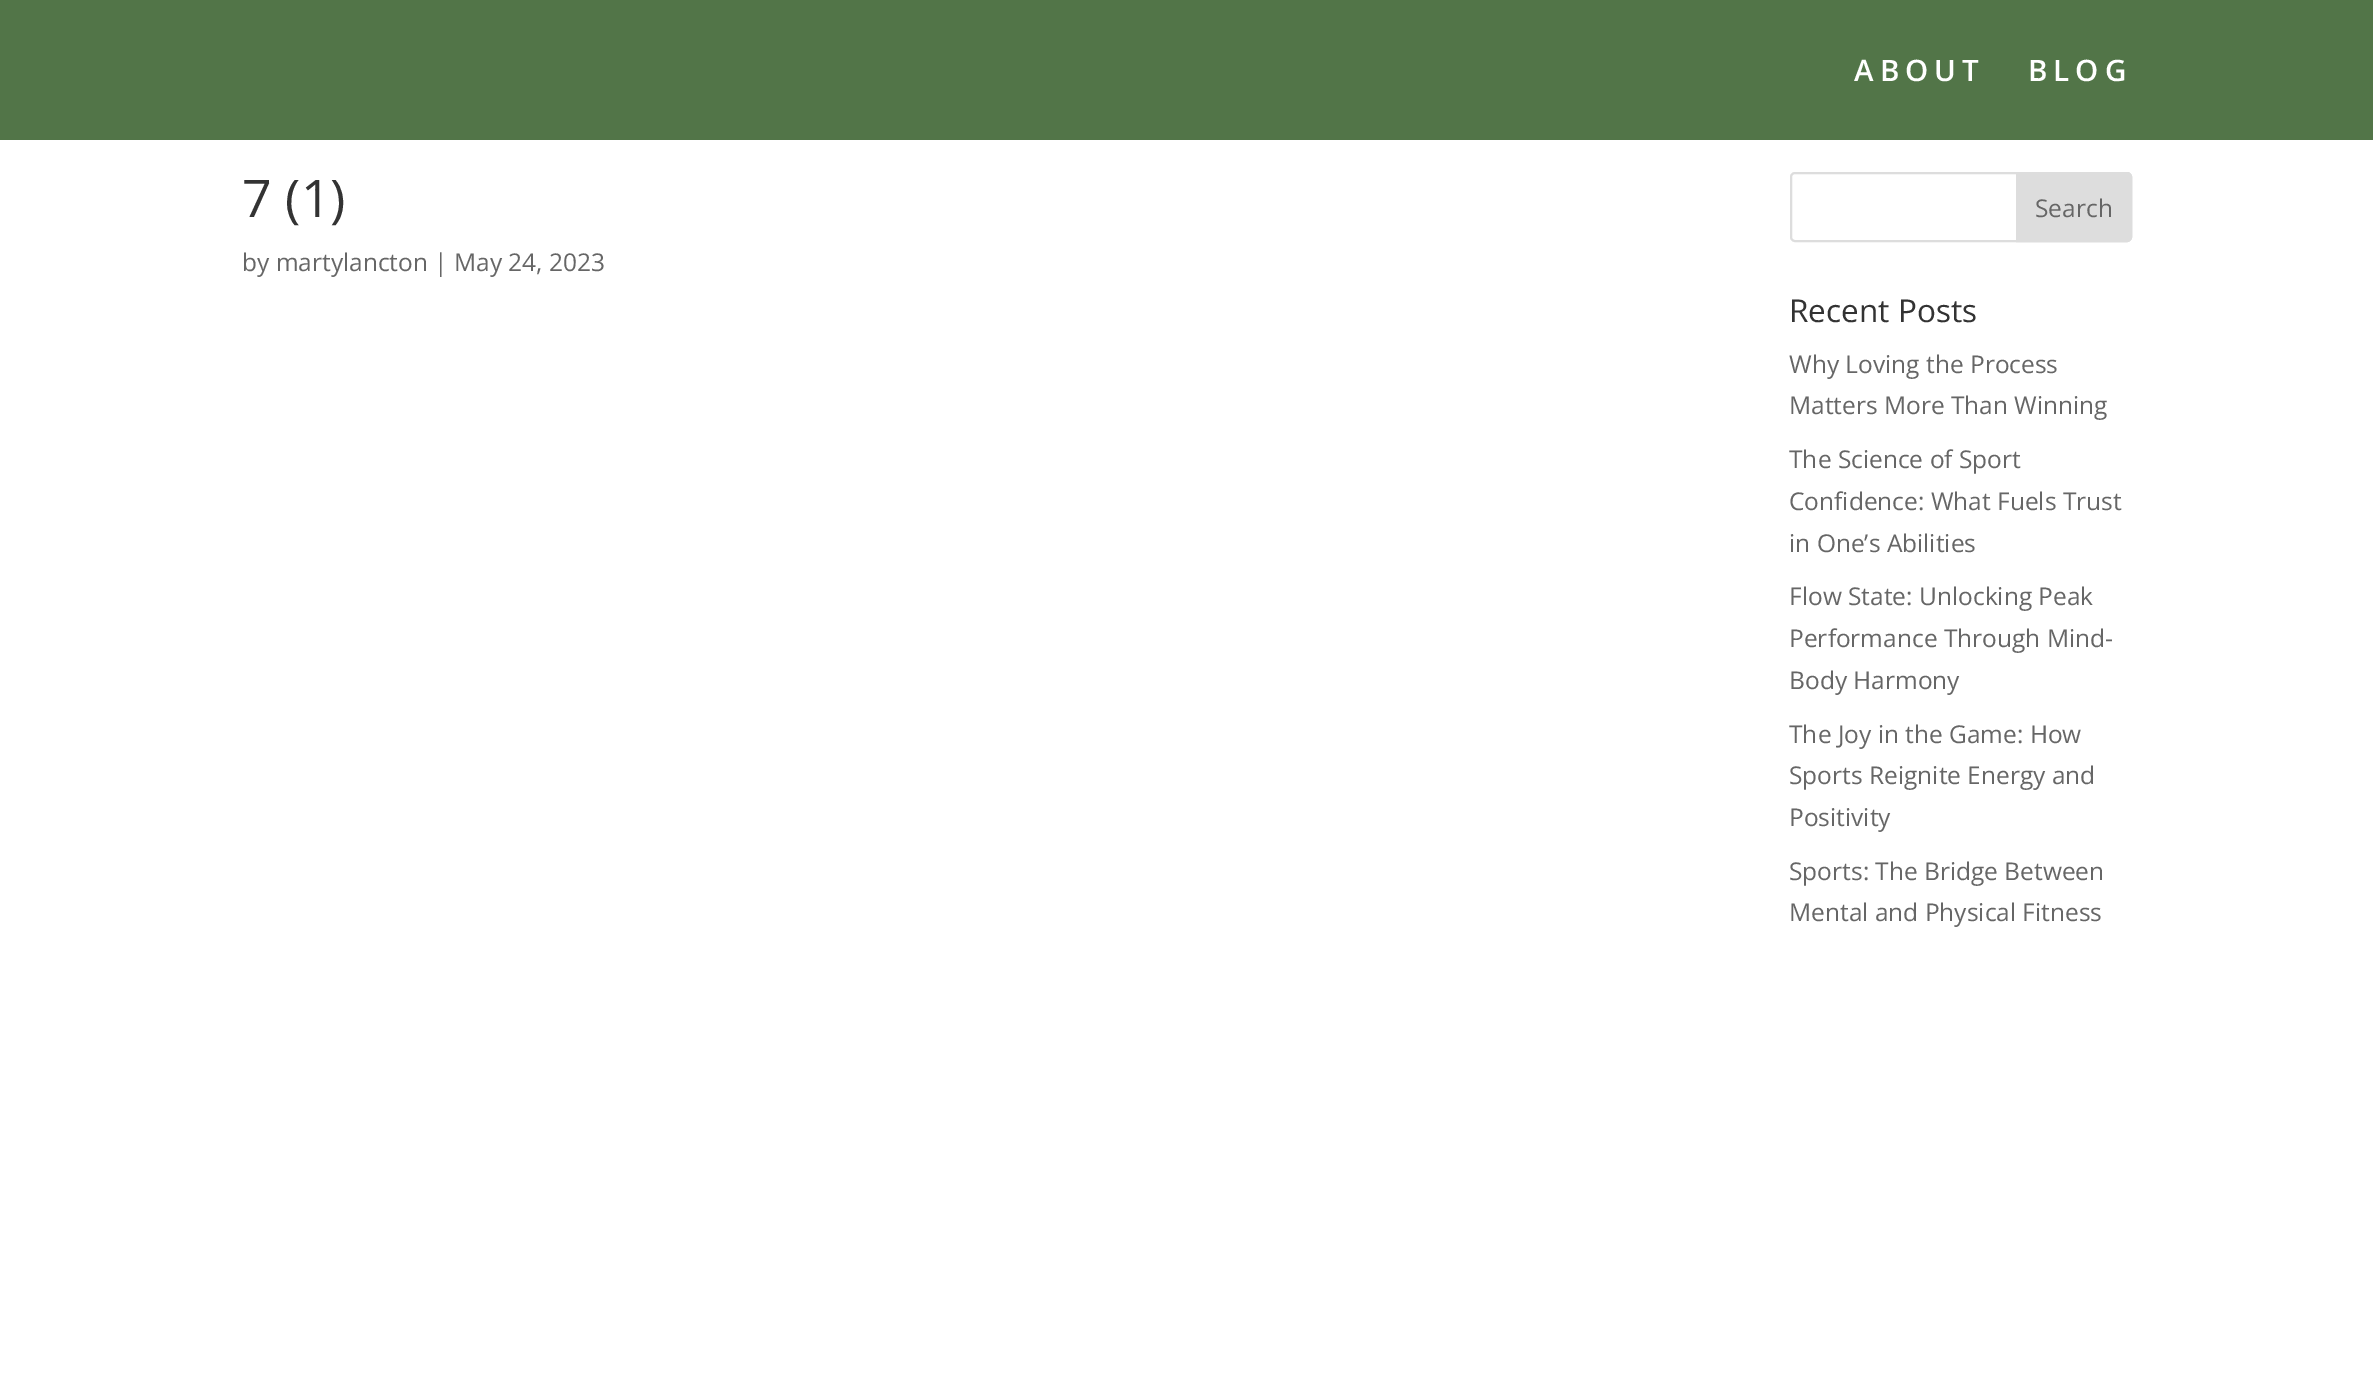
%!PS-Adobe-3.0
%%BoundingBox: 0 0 2373 1383
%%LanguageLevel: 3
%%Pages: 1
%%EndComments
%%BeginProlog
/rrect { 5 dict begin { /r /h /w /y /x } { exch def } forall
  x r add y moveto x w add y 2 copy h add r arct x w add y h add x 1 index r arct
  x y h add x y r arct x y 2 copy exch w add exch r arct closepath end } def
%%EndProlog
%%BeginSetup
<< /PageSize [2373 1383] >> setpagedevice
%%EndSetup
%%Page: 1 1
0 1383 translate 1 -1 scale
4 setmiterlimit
1 setgray
0 0 2373 1383 rectfill
0.322 0.459 0.282 setrgbcolor
0 0 2373 140 rectfill
0.867 setgray
2 setlinewidth
1791 173 340 68 4 rrect stroke
newpath 2017 173 moveto 2127 173 lineto 2129 173 2131 175 2131 177 curveto 2131 237 lineto 2131 239 2129 241 2127 241 curveto 2017 241 lineto closepath gsave fill grestore
stroke
/OpenSans-SemiBold [29.5 0 0 -29.5 0 0] selectfont
1 setgray
1854 81 moveto 6 0 (ABOUT) ashow
2028 81 moveto 6 0 (BLOG) ashow
/OpenSans-Regular [52 0 0 -52 0 0] selectfont
0.2 setgray
242 217 moveto (7 \(1\)) show
/OpenSans-Regular [24.5 0 0 -24.5 0 0] selectfont
0.4 setgray
242 271 moveto (by martylancton | May 24, 2023) show
2035 217 moveto (Search) show
/OpenSans-Regular [31.5 0 0 -31.5 0 0] selectfont
0.2 setgray
1789 322 moveto (Recent Posts) show
/OpenSans-Regular [24.5 0 0 -24.5 0 0] selectfont
0.4 setgray
1789 373 moveto (Why Loving the Process) show
1789 414 moveto (Matters More Than Winning) show
1789 468 moveto (The Science of Sport) show
1789 510 moveto (Confidence: What Fuels Trust) show
1789 552 moveto (in One’s Abilities) show
1789 605 moveto (Flow State: Unlocking Peak) show
1789 647 moveto (Performance Through Mind-) show
1789 689 moveto (Body Harmony) show
1789 743 moveto (The Joy in the Game: How) show
1789 784 moveto (Sports Reignite Energy and) show
1789 826 moveto (Positivity) show
1789 880 moveto (Sports: The Bridge Between) show
1789 921 moveto (Mental and Physical Fitness) show
showpage
%%EOF
